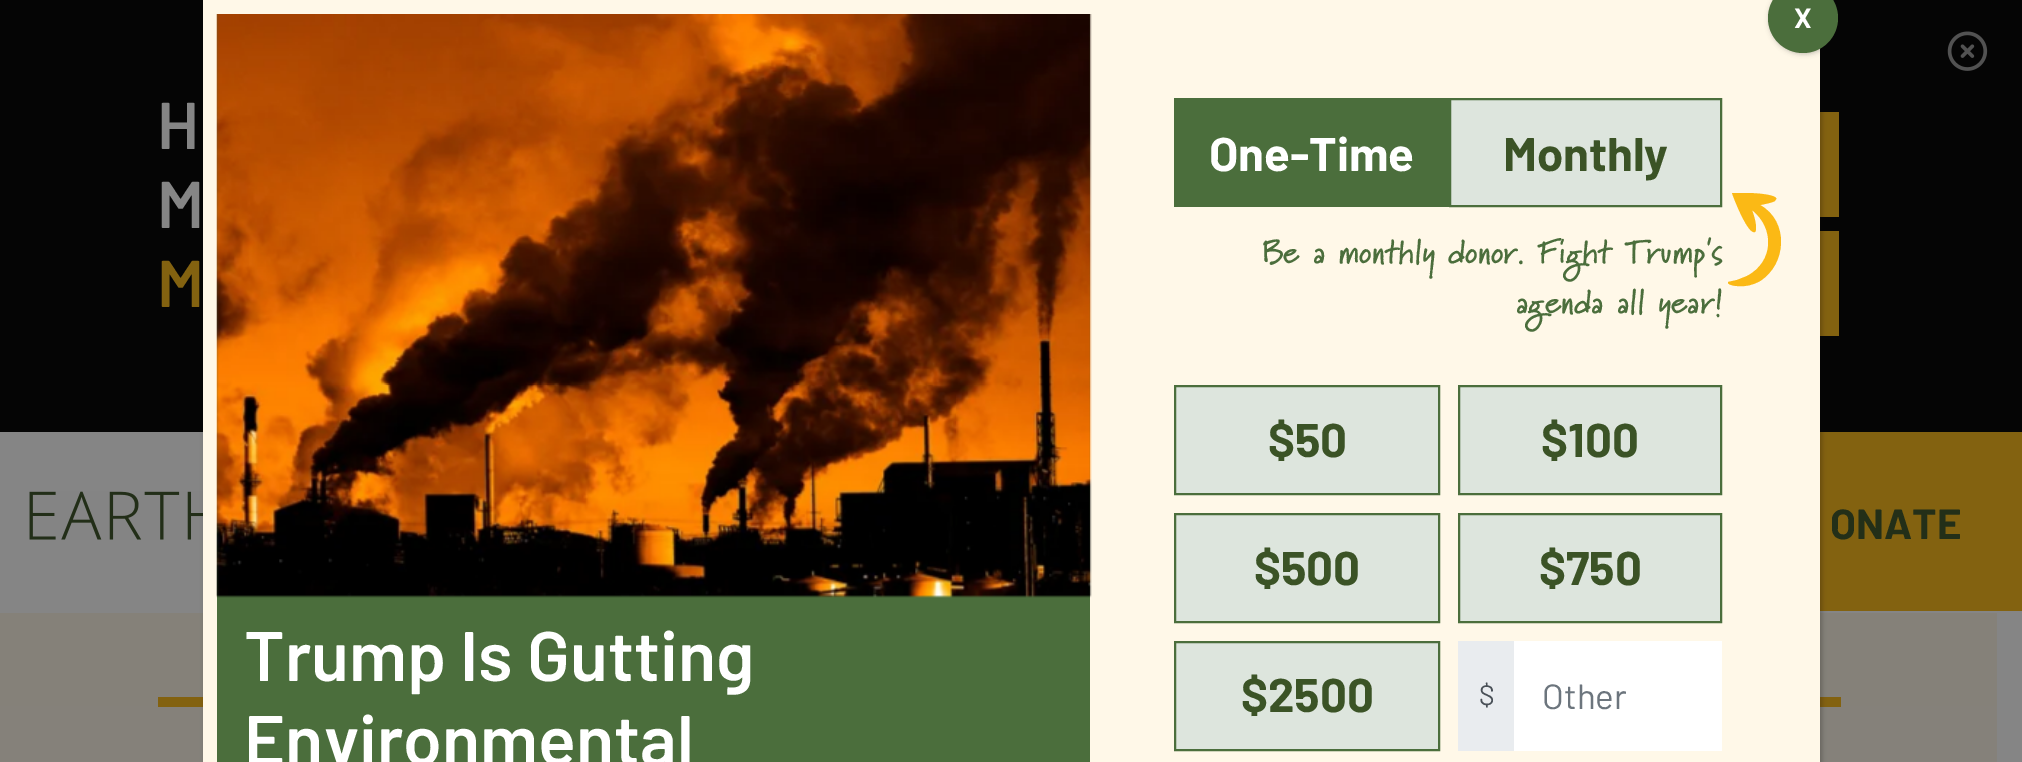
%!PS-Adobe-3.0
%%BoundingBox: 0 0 2022 762
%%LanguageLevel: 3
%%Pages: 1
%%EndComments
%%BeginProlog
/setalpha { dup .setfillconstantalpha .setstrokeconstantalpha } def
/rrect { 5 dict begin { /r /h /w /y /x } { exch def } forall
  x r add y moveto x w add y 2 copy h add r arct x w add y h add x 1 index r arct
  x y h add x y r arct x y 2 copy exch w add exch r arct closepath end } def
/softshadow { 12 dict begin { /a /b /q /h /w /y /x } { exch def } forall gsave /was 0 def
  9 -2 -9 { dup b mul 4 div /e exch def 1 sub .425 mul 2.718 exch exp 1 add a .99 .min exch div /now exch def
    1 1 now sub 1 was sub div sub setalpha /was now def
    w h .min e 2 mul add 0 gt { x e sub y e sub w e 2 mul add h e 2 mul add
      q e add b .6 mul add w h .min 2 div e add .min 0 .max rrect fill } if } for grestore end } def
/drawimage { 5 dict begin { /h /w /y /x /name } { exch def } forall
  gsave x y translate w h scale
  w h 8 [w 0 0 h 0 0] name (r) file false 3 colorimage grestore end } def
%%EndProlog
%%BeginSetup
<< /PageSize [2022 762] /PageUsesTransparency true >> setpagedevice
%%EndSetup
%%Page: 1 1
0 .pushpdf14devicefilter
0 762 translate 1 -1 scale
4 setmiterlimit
0.522 setgray
0 0 2022 762 rectfill
0.02 setgray
0 0 2022 432 rectfill
(images/1.raw) 1947 31 41 40 drawimage
0.514 0.384 0.063 setrgbcolor
1820 112 19 105 rectfill
1820 231 19 105 rectfill
(images/3.raw) 29 491 174 49 drawimage
1820 432 202 179 rectfill
gsave newpath 0 613 moveto 1997 613 lineto 1997 762 lineto 0 762 lineto closepath clip newpath
<< /ShadingType 2 /ColorSpace /DeviceRGB /Coords [998 612 998 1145] /Extend [true true] /Function << /FunctionType 3 /Domain [0 1] /Functions [<< /FunctionType 2 /Domain [0 1] /C0 [0.522 0.506 0.475] /C1 [0.522 0.506 0.475] /N 1 >> << /FunctionType 2 /Domain [0 1] /C0 [0.522 0.506 0.475] /C1 [0.522 0.522 0.522] /N 1 >>] /Bounds [0.16] /Encode [0 1 0 1] >> >> shfill grestore
158 697 1683 10 rectfill
0.008 setgray
205 2 1617 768 0 2.5 0.23 softshadow
1 0.973 0.91 setrgbcolor
203 0 1617 762 rectfill
0.008 setgray
1769 -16 70 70 35 2.5 0.23 softshadow
0.294 0.431 0.235 setrgbcolor
newpath 1803 18 35 0 360 arc closepath fill
217 14 873 748 rectfill
(images/2.raw) 216 14 876 584 drawimage
1174 98 275 109 rectfill
0.867 0.898 0.867 setrgbcolor
newpath 1450 99 moveto 1721 99 lineto 1721 206 lineto 1450 206 lineto closepath gsave fill grestore
0.294 0.431 0.235 setrgbcolor
2 setlinewidth
stroke
0.984 0.725 0.082 setrgbcolor
newpath 1746 193 moveto 1753 193 1773 194 1776 198 curveto 1777 199 1775 200 1775 201 curveto 1771 203 1765 204 1760 205 curveto 1789 221 1787 264 1760 281 curveto 1753 285 1745 287 1737 286 curveto 1735 286 1729 285 1728 283 curveto 1728 282 lineto 1737 280 lineto 1747 276 lineto 1774 262 1775 228 1752 210 curveto 1754 216 1756 222 1756 228 curveto 1756 229 1756 231 1755 232 curveto 1748 235 1734 199 1732 193 curveto closepath fill
0.867 0.898 0.867 setrgbcolor
newpath 1175 386 moveto 1439 386 lineto 1439 494 lineto 1175 494 lineto closepath gsave fill grestore
0.294 0.431 0.235 setrgbcolor
stroke
0.867 0.898 0.867 setrgbcolor
newpath 1459 386 moveto 1721 386 lineto 1721 494 lineto 1459 494 lineto closepath gsave fill grestore
0.294 0.431 0.235 setrgbcolor
stroke
0.867 0.898 0.867 setrgbcolor
newpath 1175 514 moveto 1439 514 lineto 1439 622 lineto 1175 622 lineto closepath gsave fill grestore
0.294 0.431 0.235 setrgbcolor
stroke
0.867 0.898 0.867 setrgbcolor
newpath 1459 514 moveto 1721 514 lineto 1721 622 lineto 1459 622 lineto closepath gsave fill grestore
0.294 0.431 0.235 setrgbcolor
stroke
0.867 0.898 0.867 setrgbcolor
newpath 1175 642 moveto 1439 642 lineto 1439 750 lineto 1175 750 lineto closepath gsave fill grestore
0.294 0.431 0.235 setrgbcolor
stroke
0.914 0.925 0.937 setrgbcolor
1458 641 56 110 rectfill
1 setgray
1514 641 208 110 rectfill
/Barlow-SemiBold [66 0 0 -66 0 0] selectfont
0.522 setgray
157 149 moveto (H) show
157 228 moveto (M) show
0.514 0.384 0.063 setrgbcolor
157 307 moveto (M) show
/Barlow-Bold [28 0 0 -28 0 0] selectfont
1 setgray
1794 28 moveto (X) show
/Barlow-SemiBold [70 0 0 -70 0 0] selectfont
244 681 moveto (Trump Is Gutting) show
244 765 moveto (Environmental) show
/Barlow-Bold [47.25 0 0 -47.25 0 0] selectfont
1209 171 moveto (One-Time) show
0.231 0.325 0.149 setrgbcolor
1503 171 moveto (Monthly) show
/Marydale-Bold [33.6 0 0 -33.6 0 0] selectfont
0.294 0.431 0.235 setrgbcolor
1262 263 moveto (Be a monthly donor. Fight Trump's) show
1516 313 moveto (agenda all year!) show
/Barlow-Bold [47.25 0 0 -47.25 0 0] selectfont
0.231 0.325 0.149 setrgbcolor
1268 457 moveto ($50) show
1541 457 moveto ($100) show
1254 585 moveto ($500) show
1539 585 moveto ($750) show
1241 712 moveto ($2500) show
/Barlow-Regular [28 0 0 -28 0 0] selectfont
0.286 0.314 0.341 setrgbcolor
1479 705 moveto ($) show
/Barlow-Regular [35 0 0 -35 0 0] selectfont
0.424 0.459 0.49 setrgbcolor
1542 709 moveto (Other) show
/Barlow-Bold [42 0 0 -42 0 0] selectfont
0.137 0.184 0.094 setrgbcolor
1830 539 moveto (ONATE) show
.poppdf14devicefilter showpage
%%EOF
